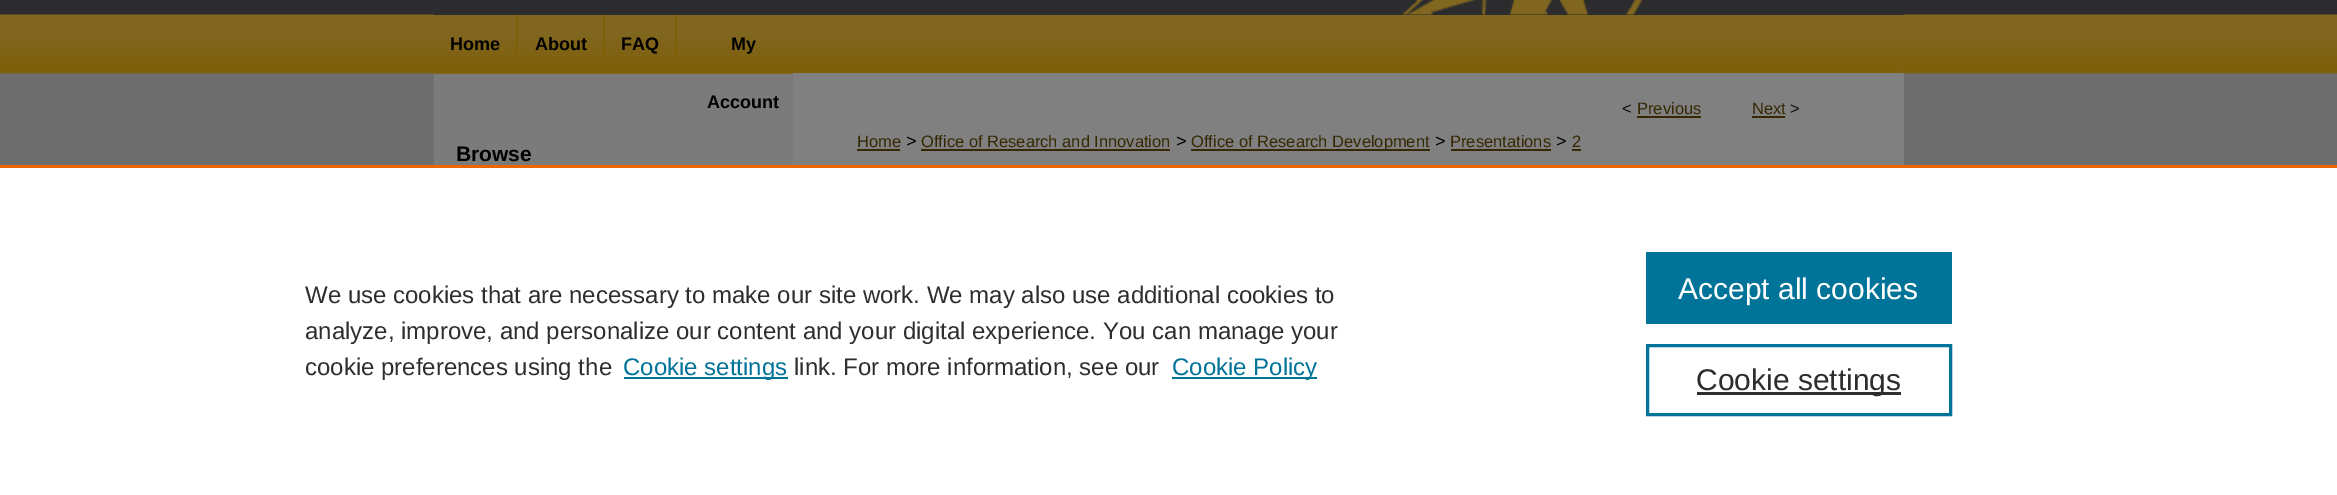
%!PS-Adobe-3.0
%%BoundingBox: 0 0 2337 495
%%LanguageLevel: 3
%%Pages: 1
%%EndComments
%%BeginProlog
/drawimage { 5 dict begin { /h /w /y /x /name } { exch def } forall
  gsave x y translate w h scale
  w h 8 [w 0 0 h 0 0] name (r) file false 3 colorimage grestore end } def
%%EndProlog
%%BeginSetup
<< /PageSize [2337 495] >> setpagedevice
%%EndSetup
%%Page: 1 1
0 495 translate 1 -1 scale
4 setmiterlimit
1 setgray
0 0 2337 495 rectfill
(images/1.raw) 0 0 2337 165 drawimage
0.502 0.4 0.122 setrgbcolor
434 36 1470 38 rectfill
(images/3.raw) 433 14 1471 59 drawimage
0.173 0.173 0.18 setrgbcolor
434 14 1470 1 rectfill
(images/2.raw) 433 0 1210 15 drawimage
0.498 0.373 0.031 setrgbcolor
516 15 2 59 rectfill
603 15 2 59 rectfill
675 15 2 59 rectfill
0.482 setgray
434 74 359 91 rectfill
0.502 setgray
793 73 1111 92 rectfill
0.208 0.157 0.012 setrgbcolor
1637 116 64 2 rectfill
1752 116 33 2 rectfill
857 149 43 2 rectfill
921 149 249 2 rectfill
1191 149 239 2 rectfill
1451 149 100 2 rectfill
1572 149 9 2 rectfill
0.922 0.396 0 setrgbcolor
0 165 2337 3 rectfill
0 0.451 0.596 setrgbcolor
624 377 164 2 rectfill
1172 377 145 2 rectfill
1646 252 306 72 rectfill
3 setlinewidth
1647.5 345.5 303 69 rectstroke
0.18 setgray
1697 392 204 3 rectfill
/LiberationSans-Bold [18 0 0 -18 0 0] selectfont
0 setgray
450 50 moveto (Home) show
535 50 moveto (About) show
621 50 moveto (FAQ) show
731 50 moveto (My) show
707 108 moveto (Account) show
/LiberationSans-Regular [16.5 0 0 -16.5 0 0] selectfont
0.067 setgray
1622 114 moveto (<) show
0.208 0.157 0.012 setrgbcolor
1637 114 moveto (Previous) show
1752 114 moveto (Next) show
0.067 setgray
1790 114 moveto (>) show
0.208 0.157 0.012 setrgbcolor
857 147 moveto (Home) show
/LiberationSans-Regular [18 0 0 -18 0 0] selectfont
0 setgray
906 147 moveto (>) show
/LiberationSans-Regular [16.5 0 0 -16.5 0 0] selectfont
0.208 0.157 0.012 setrgbcolor
921 147 moveto (Office of Research and Innovation) show
/LiberationSans-Regular [18 0 0 -18 0 0] selectfont
0 setgray
1176 147 moveto (>) show
/LiberationSans-Regular [16.5 0 0 -16.5 0 0] selectfont
0.208 0.157 0.012 setrgbcolor
1191 147 moveto (Office of Research Development) show
/LiberationSans-Regular [18 0 0 -18 0 0] selectfont
0 setgray
1435 147 moveto (>) show
/LiberationSans-Regular [16.5 0 0 -16.5 0 0] selectfont
0.208 0.157 0.012 setrgbcolor
1450 147 moveto (Presentations) show
/LiberationSans-Regular [18 0 0 -18 0 0] selectfont
0 setgray
1556 147 moveto (>) show
/LiberationSans-Regular [16.5 0 0 -16.5 0 0] selectfont
0.208 0.157 0.012 setrgbcolor
1572 147 moveto (2) show
/LiberationSans-Bold [21 0 0 -21 0 0] selectfont
0 setgray
456 161 moveto (Browse) show
/LiberationSans-Regular [24 0 0 -24 0 0] selectfont
0.18 setgray
305 303 moveto (We use cookies that are necessary to make our site work. We may also use additional cookies to) show
305 339 moveto (analyze, improve, and personalize our content and your digital experience. You can manage your) show
305 375 moveto (cookie preferences using the) show
0 0.451 0.596 setrgbcolor
623 375 moveto (Cookie settings) show
0.18 setgray
794 375 moveto (link. For more information, see our) show
0 0.451 0.596 setrgbcolor
1172 375 moveto (Cookie Policy) show
/LiberationSans-Regular [30 0 0 -30 0 0] selectfont
1 setgray
1678 299 moveto (Accept all cookies) show
0.18 setgray
1696 390 moveto (Cookie settings) show
showpage
%%EOF
